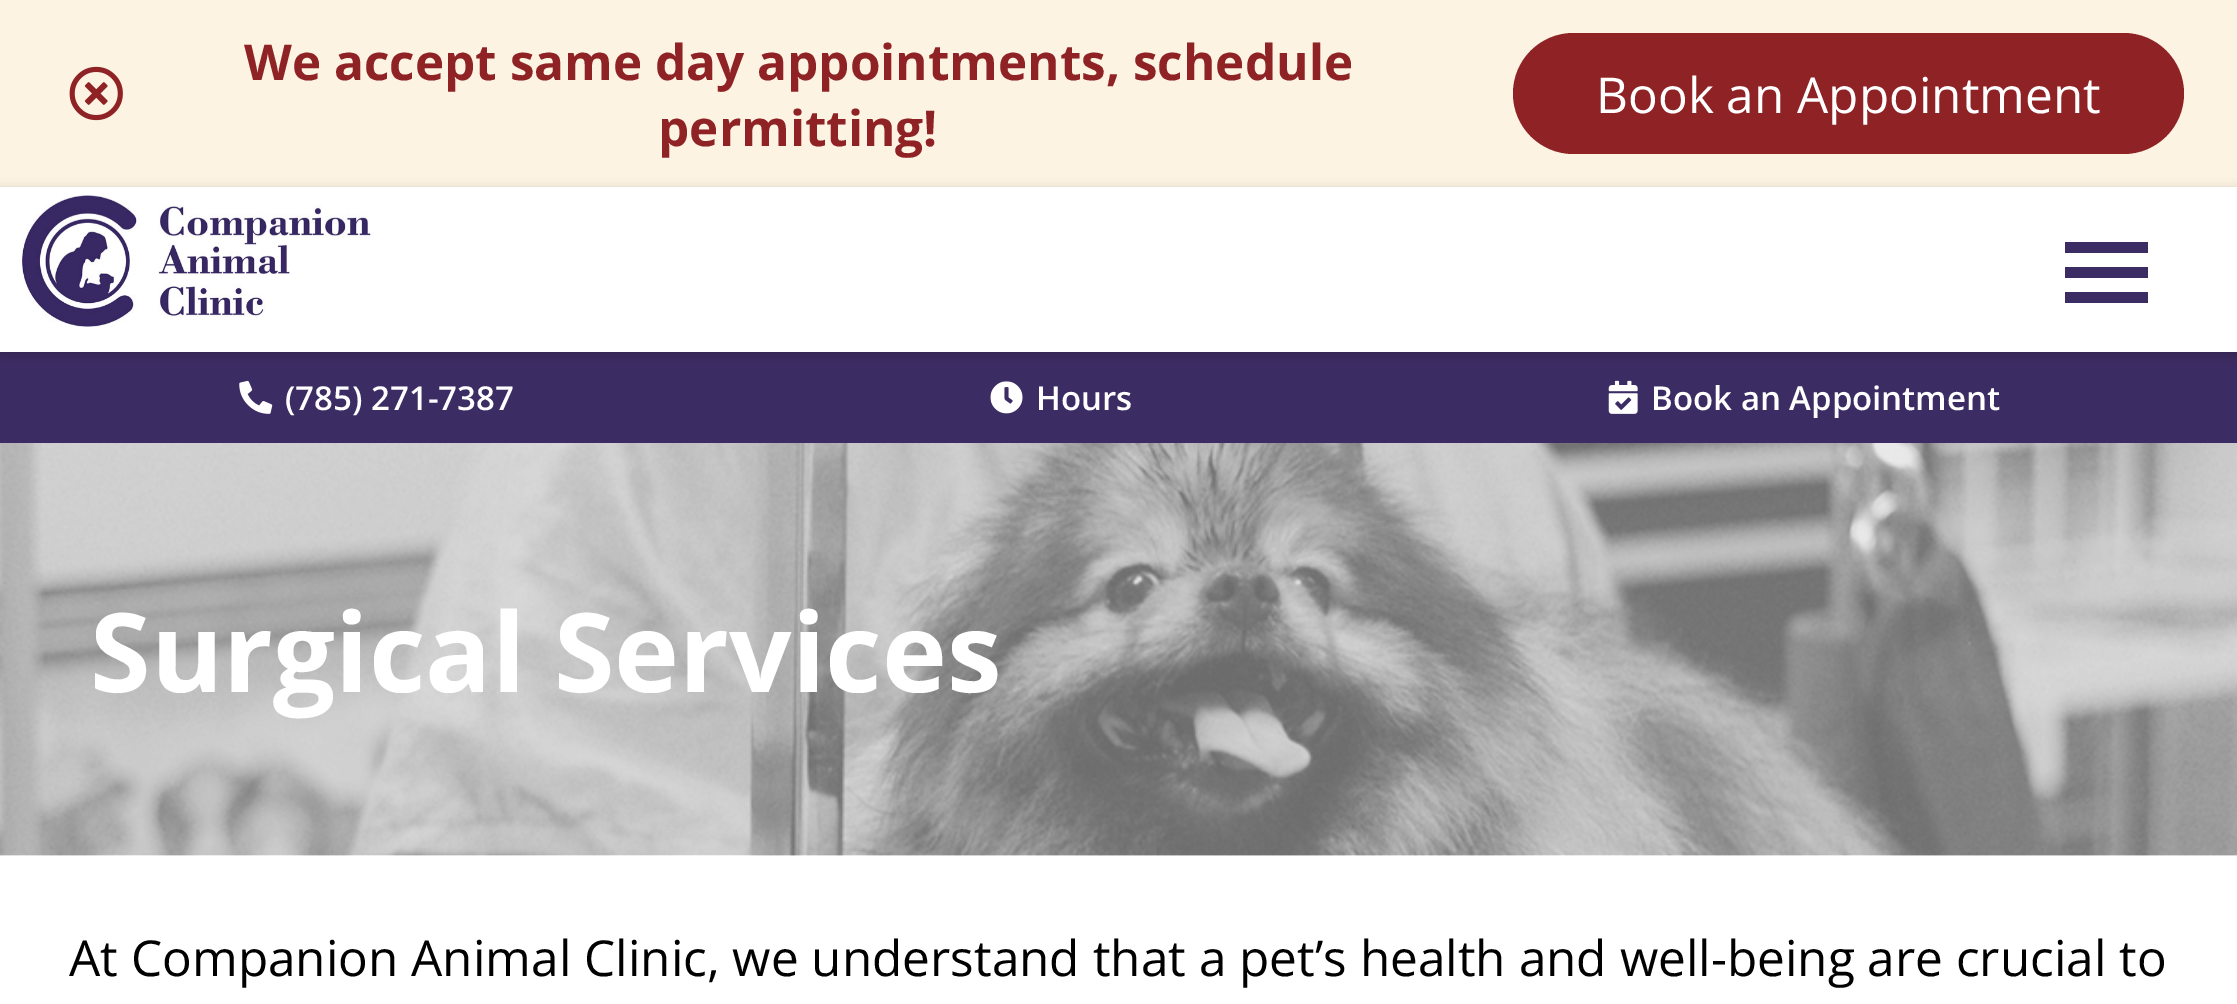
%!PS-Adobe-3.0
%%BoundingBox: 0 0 2237 1004
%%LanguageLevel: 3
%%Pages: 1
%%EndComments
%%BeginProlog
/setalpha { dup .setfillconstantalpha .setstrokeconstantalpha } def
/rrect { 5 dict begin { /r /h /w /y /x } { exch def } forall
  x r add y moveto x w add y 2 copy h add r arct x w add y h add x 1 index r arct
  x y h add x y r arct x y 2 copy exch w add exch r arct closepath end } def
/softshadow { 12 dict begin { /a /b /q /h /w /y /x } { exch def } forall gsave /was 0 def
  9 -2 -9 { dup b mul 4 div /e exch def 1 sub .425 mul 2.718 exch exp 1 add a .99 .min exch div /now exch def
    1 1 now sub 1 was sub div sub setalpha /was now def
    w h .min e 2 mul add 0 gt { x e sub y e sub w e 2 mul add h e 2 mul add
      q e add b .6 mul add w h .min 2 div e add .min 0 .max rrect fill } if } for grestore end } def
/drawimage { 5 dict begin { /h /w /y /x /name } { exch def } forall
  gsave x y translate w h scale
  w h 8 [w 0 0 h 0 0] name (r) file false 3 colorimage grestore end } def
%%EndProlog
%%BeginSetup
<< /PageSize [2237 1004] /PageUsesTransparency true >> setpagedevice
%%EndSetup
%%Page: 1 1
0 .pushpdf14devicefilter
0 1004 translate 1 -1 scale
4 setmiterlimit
1 setgray
0 0 2237 1004 rectfill
0.988 0.953 0.886 setrgbcolor
0 0 2237 187 rectfill
(images/1.raw) 69 66 54 55 drawimage
0.557 0.133 0.141 setrgbcolor
1513 33 671 121 60.5 rrect fill
0.235 0.173 0.392 setrgbcolor
0 352 2237 91 rectfill
gsave
newpath 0 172 moveto 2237 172 lineto 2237 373 lineto 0 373 lineto closepath 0 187 moveto 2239 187 lineto 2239 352 lineto 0 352 lineto closepath eoclip newpath
0 setgray
0 190 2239 165 0 5.5 0.2 softshadow
grestore
(images/2.raw) 22 195 352 132 drawimage
2065 242 83 11 rectfill
2065 267 83 11 rectfill
2065 292 83 11 rectfill
(images/3.raw) 239 380 34 34 drawimage
(images/4.raw) 990 381 33 33 drawimage
(images/5.raw) 1608 380 30 34 drawimage
(images/6.raw) 0 443 2237 413 drawimage
/OpenSans-Bold [49.5 0 0 -49.5 0 0] selectfont
0.557 0.133 0.141 setrgbcolor
244 80 moveto (We accept same day appointments, schedule) show
658 146 moveto (permitting!) show
/OpenSans-Regular [49.5 0 0 -49.5 0 0] selectfont
1 setgray
1596 113 moveto (Book an Appointment) show
/OpenSans-SemiBold [33 0 0 -33 0 0] selectfont
285 410 moveto (\(785\) 271-7387) show
1036 410 moveto (Hours) show
1651 410 moveto (Book an Appointment) show
/OpenSans-Bold [110 0 0 -110 0 0] selectfont
90 692 moveto (Surgical Services) show
/OpenSans-Regular [49.5 0 0 -49.5 0 0] selectfont
0 setgray
69 976 moveto (At Companion Animal Clinic, we understand that a pet’s health and well-being are crucial to) show
.poppdf14devicefilter showpage
%%EOF
